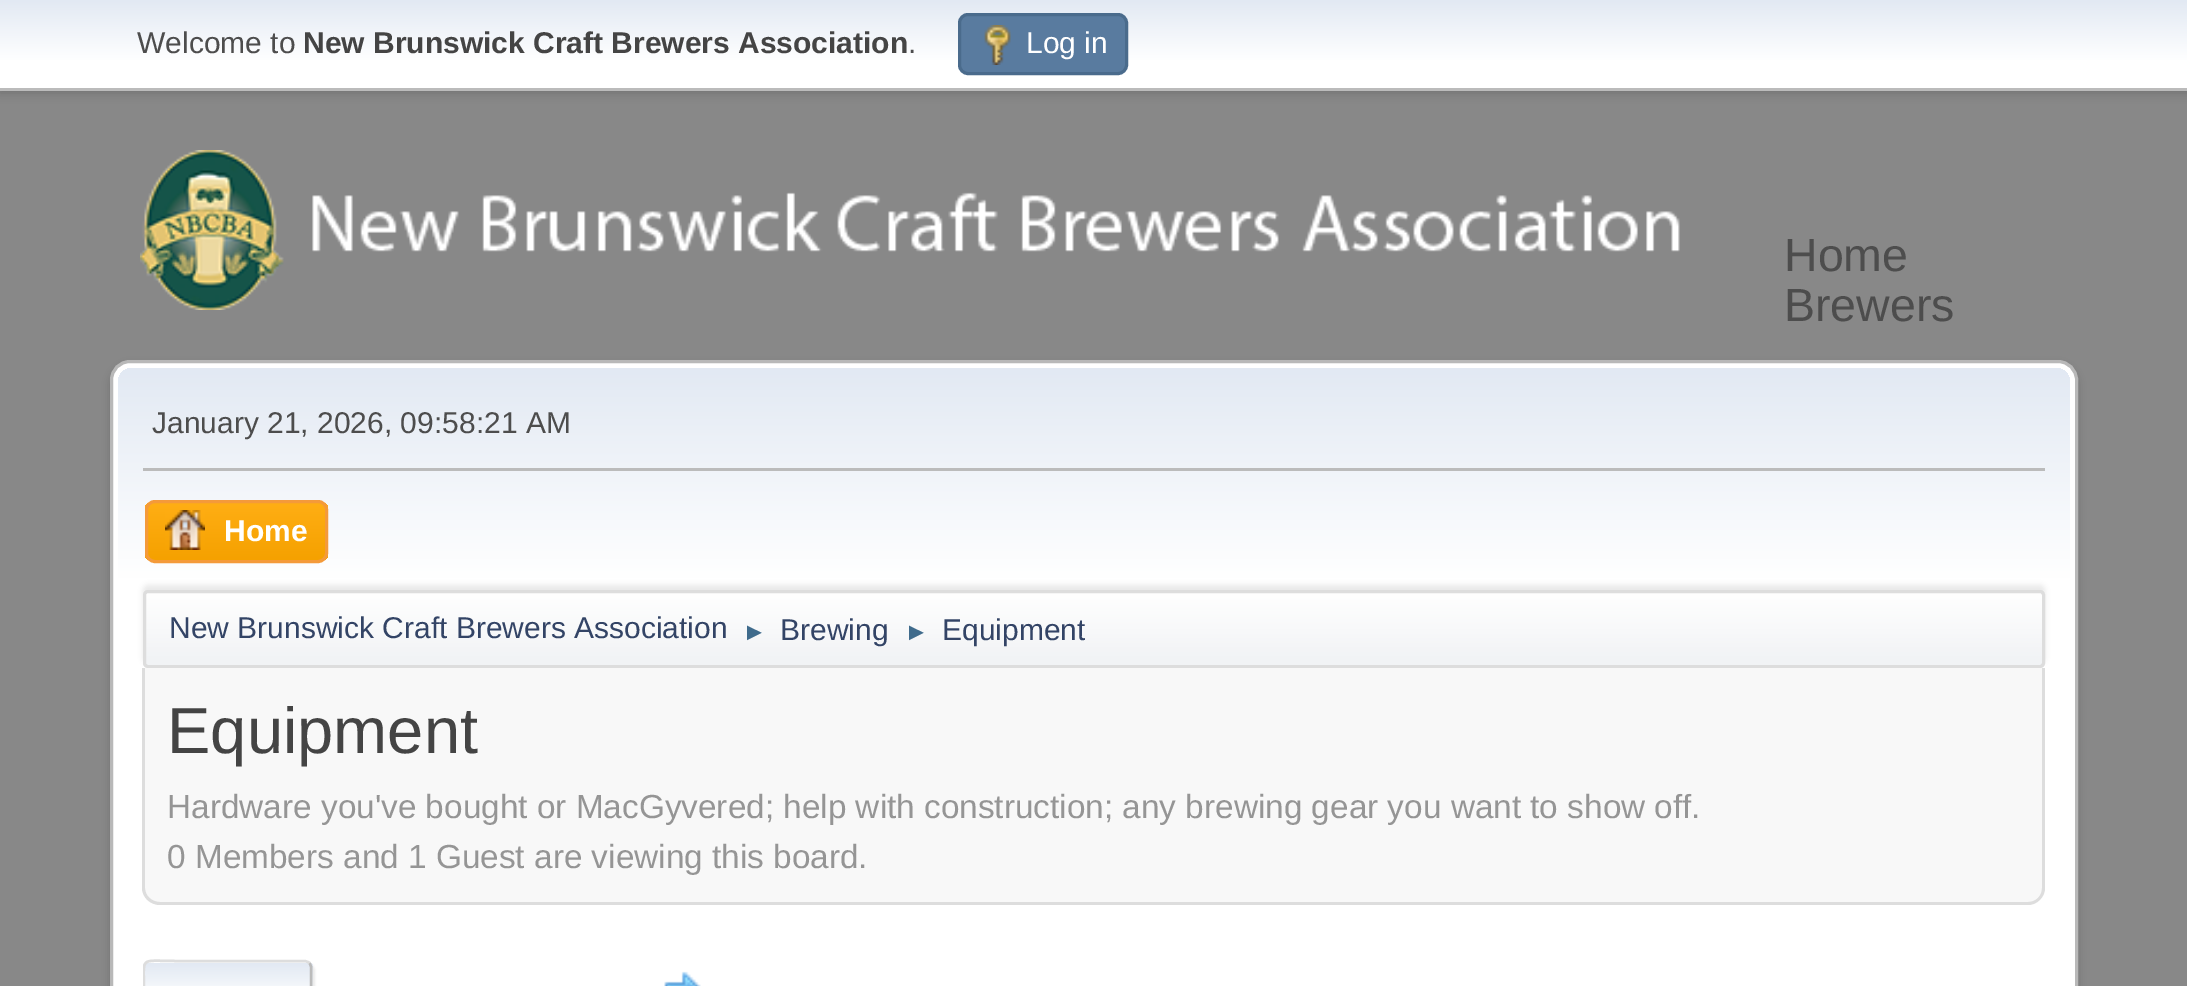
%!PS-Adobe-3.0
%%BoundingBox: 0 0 2187 986
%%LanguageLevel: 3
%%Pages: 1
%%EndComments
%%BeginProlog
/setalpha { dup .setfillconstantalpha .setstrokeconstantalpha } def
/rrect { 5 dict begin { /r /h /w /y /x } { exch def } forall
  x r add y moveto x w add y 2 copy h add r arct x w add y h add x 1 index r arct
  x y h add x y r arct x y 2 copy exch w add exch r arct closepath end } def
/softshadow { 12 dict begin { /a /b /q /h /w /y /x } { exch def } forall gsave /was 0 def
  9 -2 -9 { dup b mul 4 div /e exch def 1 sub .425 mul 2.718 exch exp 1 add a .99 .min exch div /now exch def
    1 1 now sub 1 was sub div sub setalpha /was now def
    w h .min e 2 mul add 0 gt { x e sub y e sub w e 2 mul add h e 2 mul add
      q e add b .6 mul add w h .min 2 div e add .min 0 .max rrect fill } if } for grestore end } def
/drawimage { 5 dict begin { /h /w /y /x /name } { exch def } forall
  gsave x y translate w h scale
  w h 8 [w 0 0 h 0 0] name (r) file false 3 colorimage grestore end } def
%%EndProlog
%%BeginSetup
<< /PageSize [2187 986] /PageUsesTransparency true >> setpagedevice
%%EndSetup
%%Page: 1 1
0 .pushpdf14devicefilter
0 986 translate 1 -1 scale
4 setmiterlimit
0.533 setgray
0 0 2187 986 rectfill
0 setgray
0 3 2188 90 0 5 0.16 softshadow
gsave newpath 0 0 moveto 2187 0 lineto 2187 88 lineto 0 88 lineto closepath clip newpath
<< /ShadingType 2 /ColorSpace /DeviceRGB /Coords [1094 0 1094 88] /Extend [true true] /Function << /FunctionType 3 /Domain [0 1] /Functions [<< /FunctionType 2 /Domain [0 1] /C0 [0.886 0.914 0.953] /C1 [1 1 1] /N 1 >> << /FunctionType 2 /Domain [0 1] /C0 [1 1 1] /C1 [1 1 1] /N 1 >>] /Bounds [0.7] /Encode [0 1 0 1] >> >> shfill grestore
0.733 setgray
0 88 2187 3 rectfill
0.349 0.482 0.624 setrgbcolor
959.5 14.5 167 59 8.5 rrect gsave fill grestore
0.29 0.42 0.549 setrgbcolor
3 setlinewidth
stroke
(images/1.raw) 984 25 27 40 drawimage
(images/2.raw) 140 150 1540 160 drawimage
0 setgray
110 365 1968 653 20 4 0.14 softshadow
1 setgray
111.5 361.5 1965 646 18.5 rrect gsave fill grestore
0.722 setgray
stroke
gsave newpath 133 368 moveto 2055 368 lineto 2063.5 368 2070 374.5 2070 383 curveto 2070 673 lineto 118 673 lineto 118 383 lineto 118 374.5 124.5 368 133 368 curveto closepath clip newpath
<< /ShadingType 2 /ColorSpace /DeviceRGB /Coords [1094 367 1094 673] /Extend [true true] /Function << /FunctionType 3 /Domain [0 1] /Functions [<< /FunctionType 2 /Domain [0 1] /C0 [0.886 0.914 0.953] /C1 [1 1 1] /N 1 >> << /FunctionType 2 /Domain [0 1] /C0 [1 1 1] /C1 [1 1 1] /N 1 >>] /Bounds [0.7] /Encode [0 1 0 1] >> >> shfill grestore
0.733 setgray
143 468 1902 3 rectfill
gsave
145 500 183 63 10 rrect clip newpath
gsave newpath 145 503 moveto 328 503 lineto 328 560 lineto 145 560 lineto closepath clip newpath
<< /ShadingType 2 /ColorSpace /DeviceRGB /Coords [236 503 236 560] /Extend [true true] /Function << /FunctionType 2 /Domain [0 1] /C0 [1 0.682 0.078] /C1 [0.961 0.631 0] /N 1 >> >> shfill grestore
grestore
0.957 0.604 0.227 setrgbcolor
146.5 501.5 180 60 8.5 rrect stroke
(images/3.raw) 165 510 40 40 drawimage
0 setgray
143 585 1902 78 5 2.5 0.08 softshadow
gsave
143 590 1902 78 5 rrect clip newpath
gsave newpath 143 593 moveto 2045 593 lineto 2045 665 lineto 143 665 lineto closepath clip newpath
<< /ShadingType 2 /ColorSpace /DeviceRGB /Coords [1094 592 1094 665] /Extend [true true] /Function << /FunctionType 3 /Domain [0 1] /Functions [<< /FunctionType 2 /Domain [0 1] /C0 [1 1 1] /C1 [0.945 0.953 0.961] /N 1 >> << /FunctionType 2 /Domain [0 1] /C0 [0.945 0.953 0.961] /C1 [0.945 0.953 0.961] /N 1 >>] /Bounds [0.95] /Encode [0 1 0 1] >> >> shfill grestore
grestore
0.867 setgray
144.5 591.5 1899 75 3.5 rrect stroke
0.973 setgray
newpath 143 668 moveto 2045 668 lineto 2045 887 lineto 2045 897 2037 905 2027 905 curveto 161 905 lineto 151 905 143 897 143 887 curveto closepath fill
0.867 setgray
newpath 142 668 moveto 2045 668 lineto 2045 888 lineto 2045 897 2037 905 2028 905 curveto 160 905 lineto 150 905 142 897 142 888 curveto closepath 145 668 moveto 2042 668 lineto 2042 888 lineto 2042 896 2036 902 2028 902 curveto 160 902 lineto 152 902 145 896 145 888 curveto closepath eofill
145 963 170 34 8 1 0.57 softshadow
1 setgray
143 960 170 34 8 rrect fill
gsave
143 960 170 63 8 rrect clip newpath
gsave newpath 143 963 moveto 313 963 lineto 313 986 lineto 143 986 lineto closepath clip newpath
<< /ShadingType 2 /ColorSpace /DeviceRGB /Coords [228 963 228 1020] /Extend [true true] /Function << /FunctionType 3 /Domain [0 1] /Functions [<< /FunctionType 2 /Domain [0 1] /C0 [0.886 0.914 0.953] /C1 [1 1 1] /N 1 >> << /FunctionType 2 /Domain [0 1] /C0 [1 1 1] /C1 [1 1 1] /N 1 >>] /Bounds [0.7] /Encode [0 1 0 1] >> >> shfill grestore
grestore
0.733 setgray
2.5 setlinewidth
newpath 309.5 963 moveto 310.5 964.5 311 966 311 967.5 curveto 311 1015 lineto 311 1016.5 310.5 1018 309.5 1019.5 curveto stroke
gsave
143 943 1902 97 rectclip
0.867 setgray
newpath 145.5 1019.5 moveto 142.5 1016.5 144 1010.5 144 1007 curveto 144 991 lineto 144 955.5 138.5 961 176 961 curveto 305 961 lineto 306.5 961.5 308.5 962 309.5 963 curveto stroke
grestore
(images/4.raw) 664 971 37 15 drawimage
/LiberationSans-Regular [30 0 0 -30 0 0] selectfont
0.302 setgray
137 53 moveto (Welcome to) show
/LiberationSans-Bold [30 0 0 -30 0 0] selectfont
0.267 setgray
303 53 moveto (New Brunswick Craft Brewers Association) show
/LiberationSans-Regular [30 0 0 -30 0 0] selectfont
0.302 setgray
908 53 moveto (.) show
1 setgray
1026 53 moveto (Log in) show
/LiberationSans-Regular [46.5 0 0 -46.5 0 0] selectfont
0.302 setgray
1784 271 moveto (Home) show
1784 321 moveto (Brewers) show
/LiberationSans-Regular [30 0 0 -30 0 0] selectfont
152 433 moveto (January 21, 2026, 09:58:21 AM) show
/LiberationSans-Bold [30 0 0 -30 0 0] selectfont
1 setgray
224 541 moveto (Home) show
/LiberationSans-Regular [30 0 0 -30 0 0] selectfont
0.2 0.267 0.4 setrgbcolor
169 638 moveto (New Brunswick Craft Brewers Association) show
/LiberationSans-Regular [25 0 0 -25 0 0] selectfont
0.247 0.42 0.549 setrgbcolor
742 640 moveto (►) show
/LiberationSans-Regular [30 0 0 -30 0 0] selectfont
0.2 0.267 0.4 setrgbcolor
780 640 moveto (Brewing) show
/LiberationSans-Regular [25 0 0 -25 0 0] selectfont
0.247 0.42 0.549 setrgbcolor
904 640 moveto (►) show
/LiberationSans-Regular [30 0 0 -30 0 0] selectfont
0.2 0.267 0.4 setrgbcolor
942 640 moveto (Equipment) show
/LiberationSans-Regular [65 0 0 -65 0 0] selectfont
0.267 setgray
167 753 moveto (Equipment) show
/LiberationSans-Regular [33.35 0 0 -33.35 0 0] selectfont
0.584 setgray
167 818 moveto (Hardware you've bought or MacGyvered; help with construction; any brewing gear you want to show off.) show
167 868 moveto (0 Members and 1 Guest are viewing this board.) show
.poppdf14devicefilter showpage
%%EOF
